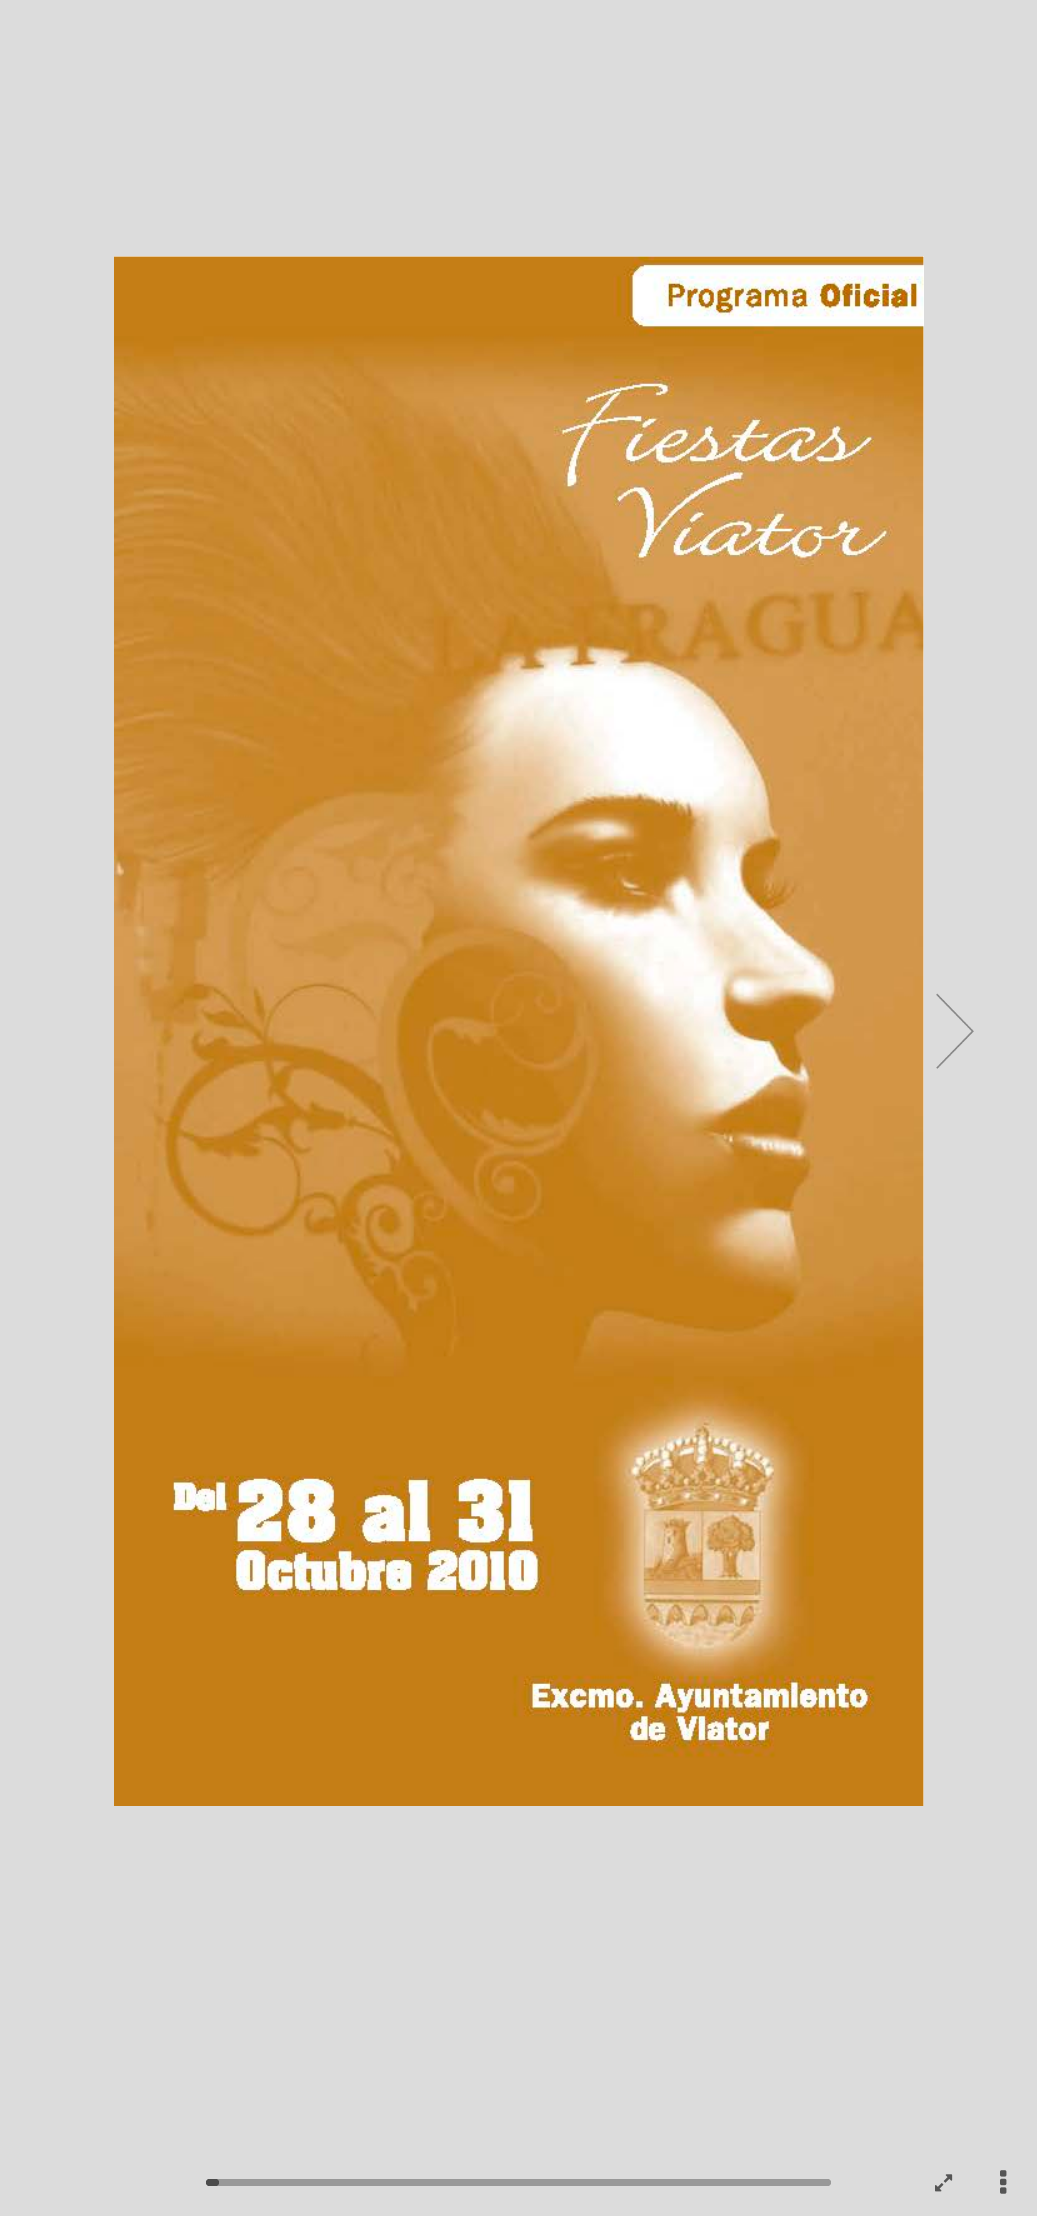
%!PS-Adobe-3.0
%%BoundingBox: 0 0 1037 2216
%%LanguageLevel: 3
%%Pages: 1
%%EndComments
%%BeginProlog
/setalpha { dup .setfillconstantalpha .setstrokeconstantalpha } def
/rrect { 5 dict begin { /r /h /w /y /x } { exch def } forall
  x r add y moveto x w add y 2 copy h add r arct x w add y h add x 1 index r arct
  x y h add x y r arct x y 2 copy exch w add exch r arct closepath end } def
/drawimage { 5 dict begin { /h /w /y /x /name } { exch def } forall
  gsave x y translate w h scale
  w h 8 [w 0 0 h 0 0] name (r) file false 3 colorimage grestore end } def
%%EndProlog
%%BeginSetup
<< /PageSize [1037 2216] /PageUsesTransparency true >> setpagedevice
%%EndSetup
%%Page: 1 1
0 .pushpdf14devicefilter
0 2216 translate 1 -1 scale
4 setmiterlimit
0.863 setgray
0 0 1037 2216 rectfill
1 setgray
114 256 810 1550 rectfill
(images/1.raw) 114 256 810 1550 drawimage
(images/2.raw) 936 993 38 76 drawimage
0.6 setgray
206 2179 625 7 3.5 rrect fill
0.5 setalpha
0 setgray
206 2179 13 7 3.5 rrect fill
1 setalpha
(images/3.raw) 935 2174 18 18 drawimage
(images/4.raw) 1000 2170 7 24 drawimage
.poppdf14devicefilter showpage
%%EOF
